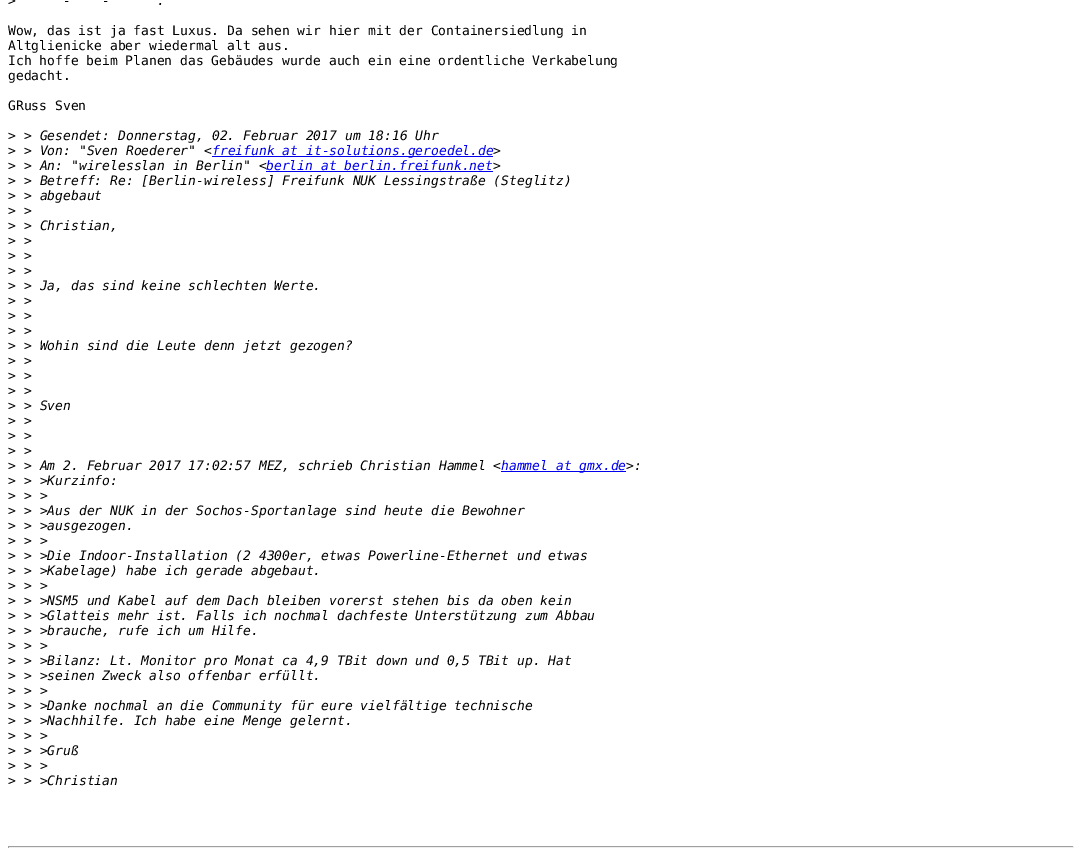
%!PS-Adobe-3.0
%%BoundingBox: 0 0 1082 868
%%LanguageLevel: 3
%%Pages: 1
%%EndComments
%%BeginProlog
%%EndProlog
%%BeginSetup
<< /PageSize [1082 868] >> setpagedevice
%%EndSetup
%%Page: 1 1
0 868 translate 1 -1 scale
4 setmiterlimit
1 setgray
0 0 1082 868 rectfill
0 0 0.933 setrgbcolor
212 156 281 1 rectfill
266 171 227 1 rectfill
501 471 125 1 rectfill
0.624 setgray
8 846 1066 1 rectfill
0.933 setgray
1073 846 1 2 rectfill
8 847 1066 1 rectfill
0.624 setgray
8 846 1 2 rectfill
/DejaVuSansMono-Regular [13 0 0 -13 0 0] selectfont
0 setgray
8 5 moveto (>) show
/DejaVuSansMono-Italic [13 0 0 -13 0 0] selectfont
63 5 moveto (-) show
102 5 moveto (-) show
157 5 moveto (.) show
/DejaVuSansMono-Regular [13 0 0 -13 0 0] selectfont
8 35 moveto (Wow, das ist ja fast Luxus. Da sehen wir hier mit der Containersiedlung in) show
8 50 moveto (Altglienicke aber wiedermal alt aus.) show
8 65 moveto (Ich hoffe beim Planen das Gebäudes wurde auch ein eine ordentliche Verkabelung) show
8 80 moveto (gedacht.) show
8 110 moveto (GRuss Sven) show
8 140 moveto (>) show
/DejaVuSansMono-Italic [13 0 0 -13 0 0] selectfont
24 140 moveto (> Gesendet: Donnerstag, 02. Februar 2017 um 18:16 Uhr) show
/DejaVuSansMono-Regular [13 0 0 -13 0 0] selectfont
8 155 moveto (>) show
/DejaVuSansMono-Italic [13 0 0 -13 0 0] selectfont
24 155 moveto (> Von: "Sven Roederer" <) show
0 0 0.933 setrgbcolor
212 155 moveto (freifunk at it-solutions.geroedel.de) show
0 setgray
493 155 moveto (>) show
/DejaVuSansMono-Regular [13 0 0 -13 0 0] selectfont
8 170 moveto (>) show
/DejaVuSansMono-Italic [13 0 0 -13 0 0] selectfont
24 170 moveto (> An: "wirelesslan in Berlin" <) show
0 0 0.933 setrgbcolor
266 170 moveto (berlin at berlin.freifunk.net) show
0 setgray
493 170 moveto (>) show
/DejaVuSansMono-Regular [13 0 0 -13 0 0] selectfont
8 185 moveto (>) show
/DejaVuSansMono-Italic [13 0 0 -13 0 0] selectfont
24 185 moveto (> Betreff: Re: [Berlin-wireless] Freifunk NUK Lessingstraße \(Steglitz\)) show
/DejaVuSansMono-Regular [13 0 0 -13 0 0] selectfont
8 200 moveto (>) show
/DejaVuSansMono-Italic [13 0 0 -13 0 0] selectfont
24 200 moveto (> abgebaut) show
/DejaVuSansMono-Regular [13 0 0 -13 0 0] selectfont
8 215 moveto (>) show
/DejaVuSansMono-Italic [13 0 0 -13 0 0] selectfont
24 215 moveto (>) show
/DejaVuSansMono-Regular [13 0 0 -13 0 0] selectfont
8 230 moveto (>) show
/DejaVuSansMono-Italic [13 0 0 -13 0 0] selectfont
24 230 moveto (> Christian,) show
/DejaVuSansMono-Regular [13 0 0 -13 0 0] selectfont
8 245 moveto (>) show
/DejaVuSansMono-Italic [13 0 0 -13 0 0] selectfont
24 245 moveto (>) show
/DejaVuSansMono-Regular [13 0 0 -13 0 0] selectfont
8 260 moveto (>) show
/DejaVuSansMono-Italic [13 0 0 -13 0 0] selectfont
24 260 moveto (>) show
/DejaVuSansMono-Regular [13 0 0 -13 0 0] selectfont
8 275 moveto (>) show
/DejaVuSansMono-Italic [13 0 0 -13 0 0] selectfont
24 275 moveto (>) show
/DejaVuSansMono-Regular [13 0 0 -13 0 0] selectfont
8 290 moveto (>) show
/DejaVuSansMono-Italic [13 0 0 -13 0 0] selectfont
24 290 moveto (> Ja, das sind keine schlechten Werte.) show
/DejaVuSansMono-Regular [13 0 0 -13 0 0] selectfont
8 305 moveto (>) show
/DejaVuSansMono-Italic [13 0 0 -13 0 0] selectfont
24 305 moveto (>) show
/DejaVuSansMono-Regular [13 0 0 -13 0 0] selectfont
8 320 moveto (>) show
/DejaVuSansMono-Italic [13 0 0 -13 0 0] selectfont
24 320 moveto (>) show
/DejaVuSansMono-Regular [13 0 0 -13 0 0] selectfont
8 335 moveto (>) show
/DejaVuSansMono-Italic [13 0 0 -13 0 0] selectfont
24 335 moveto (>) show
/DejaVuSansMono-Regular [13 0 0 -13 0 0] selectfont
8 350 moveto (>) show
/DejaVuSansMono-Italic [13 0 0 -13 0 0] selectfont
24 350 moveto (> Wohin sind die Leute denn jetzt gezogen?) show
/DejaVuSansMono-Regular [13 0 0 -13 0 0] selectfont
8 365 moveto (>) show
/DejaVuSansMono-Italic [13 0 0 -13 0 0] selectfont
24 365 moveto (>) show
/DejaVuSansMono-Regular [13 0 0 -13 0 0] selectfont
8 380 moveto (>) show
/DejaVuSansMono-Italic [13 0 0 -13 0 0] selectfont
24 380 moveto (>) show
/DejaVuSansMono-Regular [13 0 0 -13 0 0] selectfont
8 395 moveto (>) show
/DejaVuSansMono-Italic [13 0 0 -13 0 0] selectfont
24 395 moveto (>) show
/DejaVuSansMono-Regular [13 0 0 -13 0 0] selectfont
8 410 moveto (>) show
/DejaVuSansMono-Italic [13 0 0 -13 0 0] selectfont
24 410 moveto (> Sven) show
/DejaVuSansMono-Regular [13 0 0 -13 0 0] selectfont
8 425 moveto (>) show
/DejaVuSansMono-Italic [13 0 0 -13 0 0] selectfont
24 425 moveto (>) show
/DejaVuSansMono-Regular [13 0 0 -13 0 0] selectfont
8 440 moveto (>) show
/DejaVuSansMono-Italic [13 0 0 -13 0 0] selectfont
24 440 moveto (>) show
/DejaVuSansMono-Regular [13 0 0 -13 0 0] selectfont
8 455 moveto (>) show
/DejaVuSansMono-Italic [13 0 0 -13 0 0] selectfont
24 455 moveto (>) show
/DejaVuSansMono-Regular [13 0 0 -13 0 0] selectfont
8 470 moveto (>) show
/DejaVuSansMono-Italic [13 0 0 -13 0 0] selectfont
24 470 moveto (> Am 2. Februar 2017 17:02:57 MEZ, schrieb Christian Hammel <) show
0 0 0.933 setrgbcolor
501 470 moveto (hammel at gmx.de) show
0 setgray
626 470 moveto (>:) show
/DejaVuSansMono-Regular [13 0 0 -13 0 0] selectfont
8 485 moveto (>) show
/DejaVuSansMono-Italic [13 0 0 -13 0 0] selectfont
24 485 moveto (> >Kurzinfo:) show
/DejaVuSansMono-Regular [13 0 0 -13 0 0] selectfont
8 500 moveto (>) show
/DejaVuSansMono-Italic [13 0 0 -13 0 0] selectfont
24 500 moveto (> >) show
/DejaVuSansMono-Regular [13 0 0 -13 0 0] selectfont
8 515 moveto (>) show
/DejaVuSansMono-Italic [13 0 0 -13 0 0] selectfont
24 515 moveto (> >Aus der NUK in der Sochos-Sportanlage sind heute die Bewohner) show
/DejaVuSansMono-Regular [13 0 0 -13 0 0] selectfont
8 530 moveto (>) show
/DejaVuSansMono-Italic [13 0 0 -13 0 0] selectfont
24 530 moveto (> >ausgezogen.) show
/DejaVuSansMono-Regular [13 0 0 -13 0 0] selectfont
8 545 moveto (>) show
/DejaVuSansMono-Italic [13 0 0 -13 0 0] selectfont
24 545 moveto (> >) show
/DejaVuSansMono-Regular [13 0 0 -13 0 0] selectfont
8 560 moveto (>) show
/DejaVuSansMono-Italic [13 0 0 -13 0 0] selectfont
24 560 moveto (> >Die Indoor-Installation \(2 4300er, etwas Powerline-Ethernet und etwas) show
/DejaVuSansMono-Regular [13 0 0 -13 0 0] selectfont
8 575 moveto (>) show
/DejaVuSansMono-Italic [13 0 0 -13 0 0] selectfont
24 575 moveto (> >Kabelage\) habe ich gerade abgebaut.) show
/DejaVuSansMono-Regular [13 0 0 -13 0 0] selectfont
8 590 moveto (>) show
/DejaVuSansMono-Italic [13 0 0 -13 0 0] selectfont
24 590 moveto (> >) show
/DejaVuSansMono-Regular [13 0 0 -13 0 0] selectfont
8 605 moveto (>) show
/DejaVuSansMono-Italic [13 0 0 -13 0 0] selectfont
24 605 moveto (> >NSM5 und Kabel auf dem Dach bleiben vorerst stehen bis da oben kein) show
/DejaVuSansMono-Regular [13 0 0 -13 0 0] selectfont
8 620 moveto (>) show
/DejaVuSansMono-Italic [13 0 0 -13 0 0] selectfont
24 620 moveto (> >Glatteis mehr ist. Falls ich nochmal dachfeste Unterstützung zum Abbau) show
/DejaVuSansMono-Regular [13 0 0 -13 0 0] selectfont
8 635 moveto (>) show
/DejaVuSansMono-Italic [13 0 0 -13 0 0] selectfont
24 635 moveto (> >brauche, rufe ich um Hilfe.) show
/DejaVuSansMono-Regular [13 0 0 -13 0 0] selectfont
8 650 moveto (>) show
/DejaVuSansMono-Italic [13 0 0 -13 0 0] selectfont
24 650 moveto (> >) show
/DejaVuSansMono-Regular [13 0 0 -13 0 0] selectfont
8 665 moveto (>) show
/DejaVuSansMono-Italic [13 0 0 -13 0 0] selectfont
24 665 moveto (> >Bilanz: Lt. Monitor pro Monat ca 4,9 TBit down und 0,5 TBit up. Hat) show
/DejaVuSansMono-Regular [13 0 0 -13 0 0] selectfont
8 680 moveto (>) show
/DejaVuSansMono-Italic [13 0 0 -13 0 0] selectfont
24 680 moveto (> >seinen Zweck also offenbar erfüllt.) show
/DejaVuSansMono-Regular [13 0 0 -13 0 0] selectfont
8 695 moveto (>) show
/DejaVuSansMono-Italic [13 0 0 -13 0 0] selectfont
24 695 moveto (> >) show
/DejaVuSansMono-Regular [13 0 0 -13 0 0] selectfont
8 710 moveto (>) show
/DejaVuSansMono-Italic [13 0 0 -13 0 0] selectfont
24 710 moveto (> >Danke nochmal an die Community für eure vielfältige technische) show
/DejaVuSansMono-Regular [13 0 0 -13 0 0] selectfont
8 725 moveto (>) show
/DejaVuSansMono-Italic [13 0 0 -13 0 0] selectfont
24 725 moveto (> >Nachhilfe. Ich habe eine Menge gelernt.) show
/DejaVuSansMono-Regular [13 0 0 -13 0 0] selectfont
8 740 moveto (>) show
/DejaVuSansMono-Italic [13 0 0 -13 0 0] selectfont
24 740 moveto (> >) show
/DejaVuSansMono-Regular [13 0 0 -13 0 0] selectfont
8 755 moveto (>) show
/DejaVuSansMono-Italic [13 0 0 -13 0 0] selectfont
24 755 moveto (> >Gruß) show
/DejaVuSansMono-Regular [13 0 0 -13 0 0] selectfont
8 770 moveto (>) show
/DejaVuSansMono-Italic [13 0 0 -13 0 0] selectfont
24 770 moveto (> >) show
/DejaVuSansMono-Regular [13 0 0 -13 0 0] selectfont
8 785 moveto (>) show
/DejaVuSansMono-Italic [13 0 0 -13 0 0] selectfont
24 785 moveto (> >Christian) show
showpage
%%EOF
